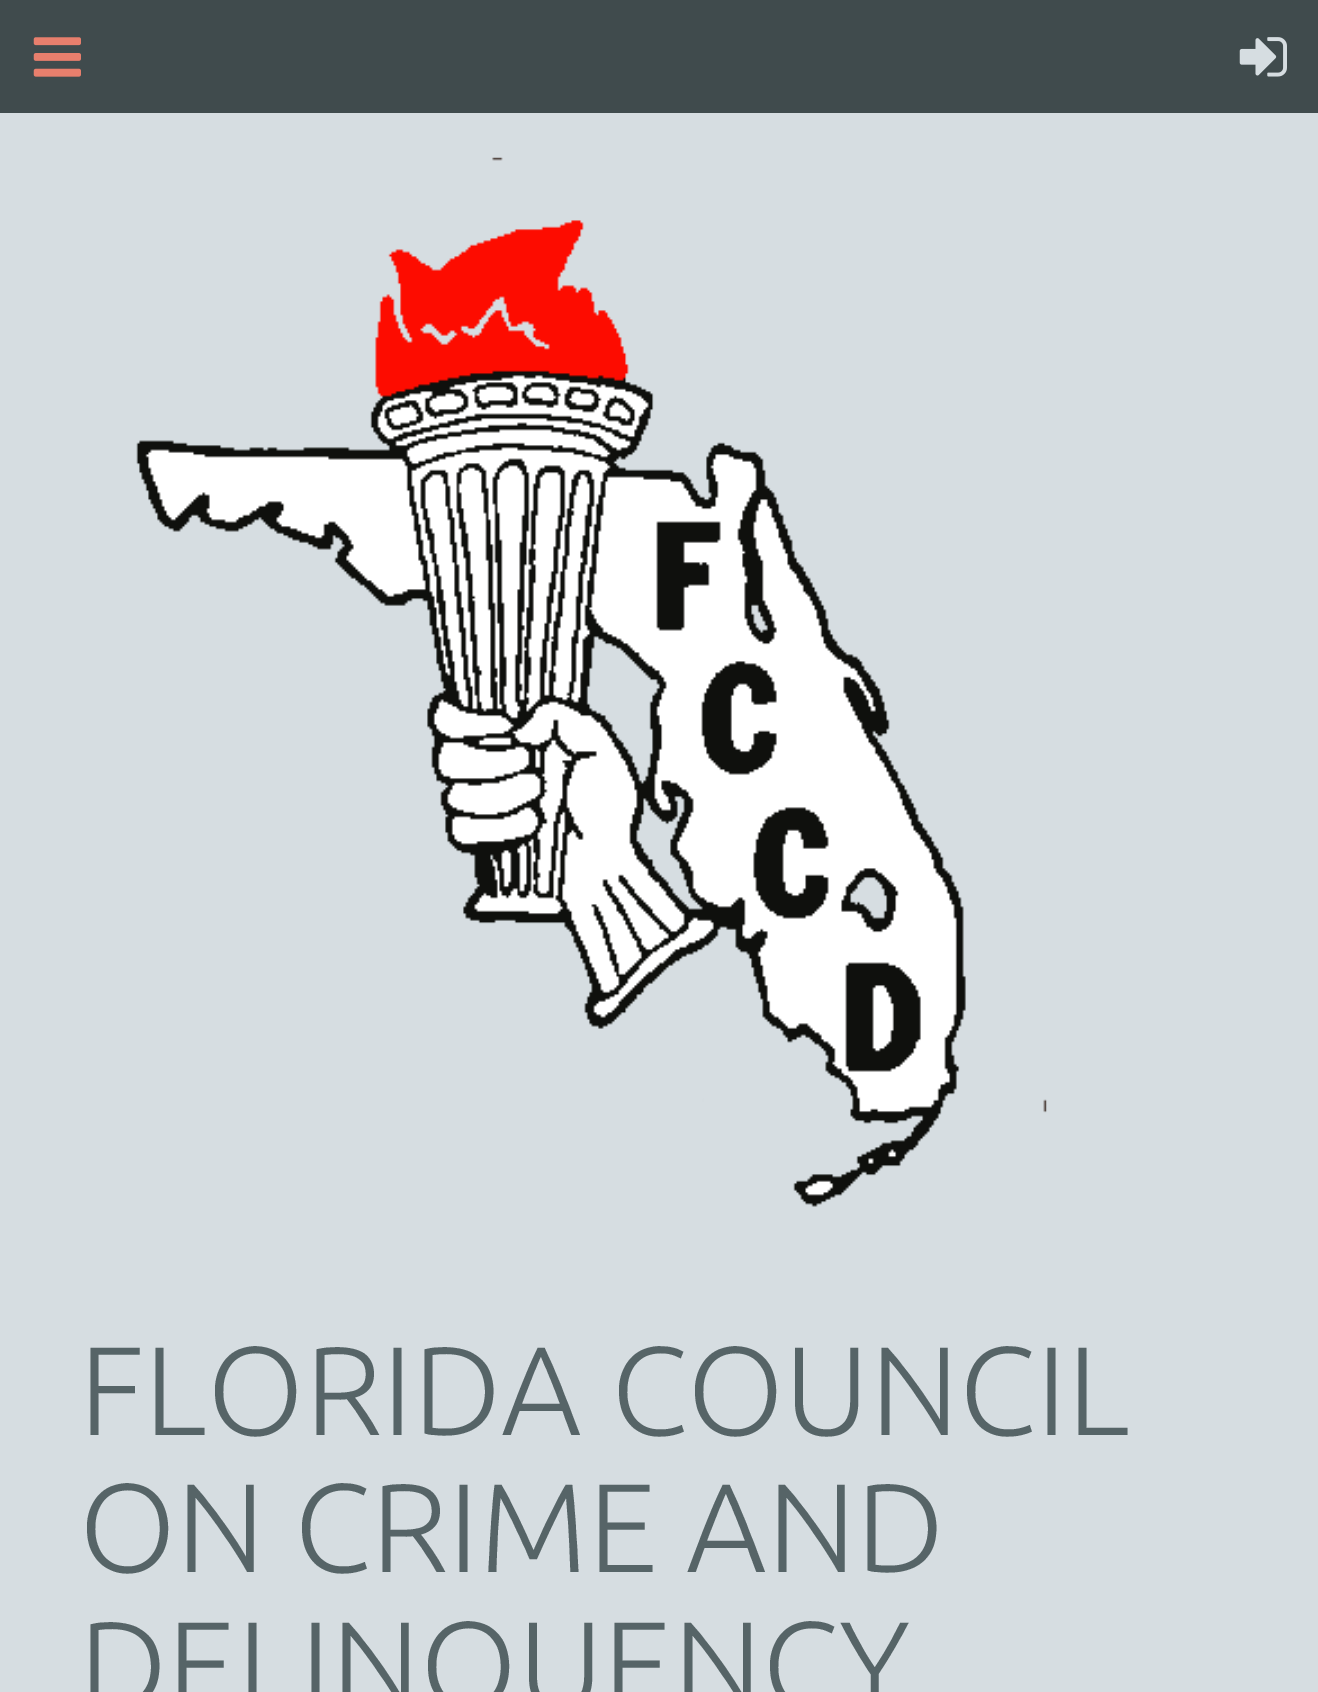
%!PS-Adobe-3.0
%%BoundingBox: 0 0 1318 1692
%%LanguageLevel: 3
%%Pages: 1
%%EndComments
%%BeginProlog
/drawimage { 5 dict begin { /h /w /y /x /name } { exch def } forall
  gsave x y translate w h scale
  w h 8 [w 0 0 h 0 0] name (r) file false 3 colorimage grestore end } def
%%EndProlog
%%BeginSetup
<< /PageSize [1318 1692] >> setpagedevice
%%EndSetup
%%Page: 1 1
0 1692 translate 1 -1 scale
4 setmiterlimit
0.839 0.867 0.882 setrgbcolor
0 0 1318 1692 rectfill
0.251 0.294 0.302 setrgbcolor
0 0 1318 113 rectfill
(images/1.raw) 33 37 48 40 drawimage
(images/2.raw) 1239 37 48 40 drawimage
(images/3.raw) 136 157 911 1050 drawimage
/Ubuntu-Light [126 0 0 -126 0 0] selectfont
0.337 0.392 0.404 setrgbcolor
79 1435 moveto (FLORIDA COUNCIL) show
79 1572 moveto (ON CRIME AND) show
79 1710 moveto (DELINQUENCY) show
showpage
%%EOF
